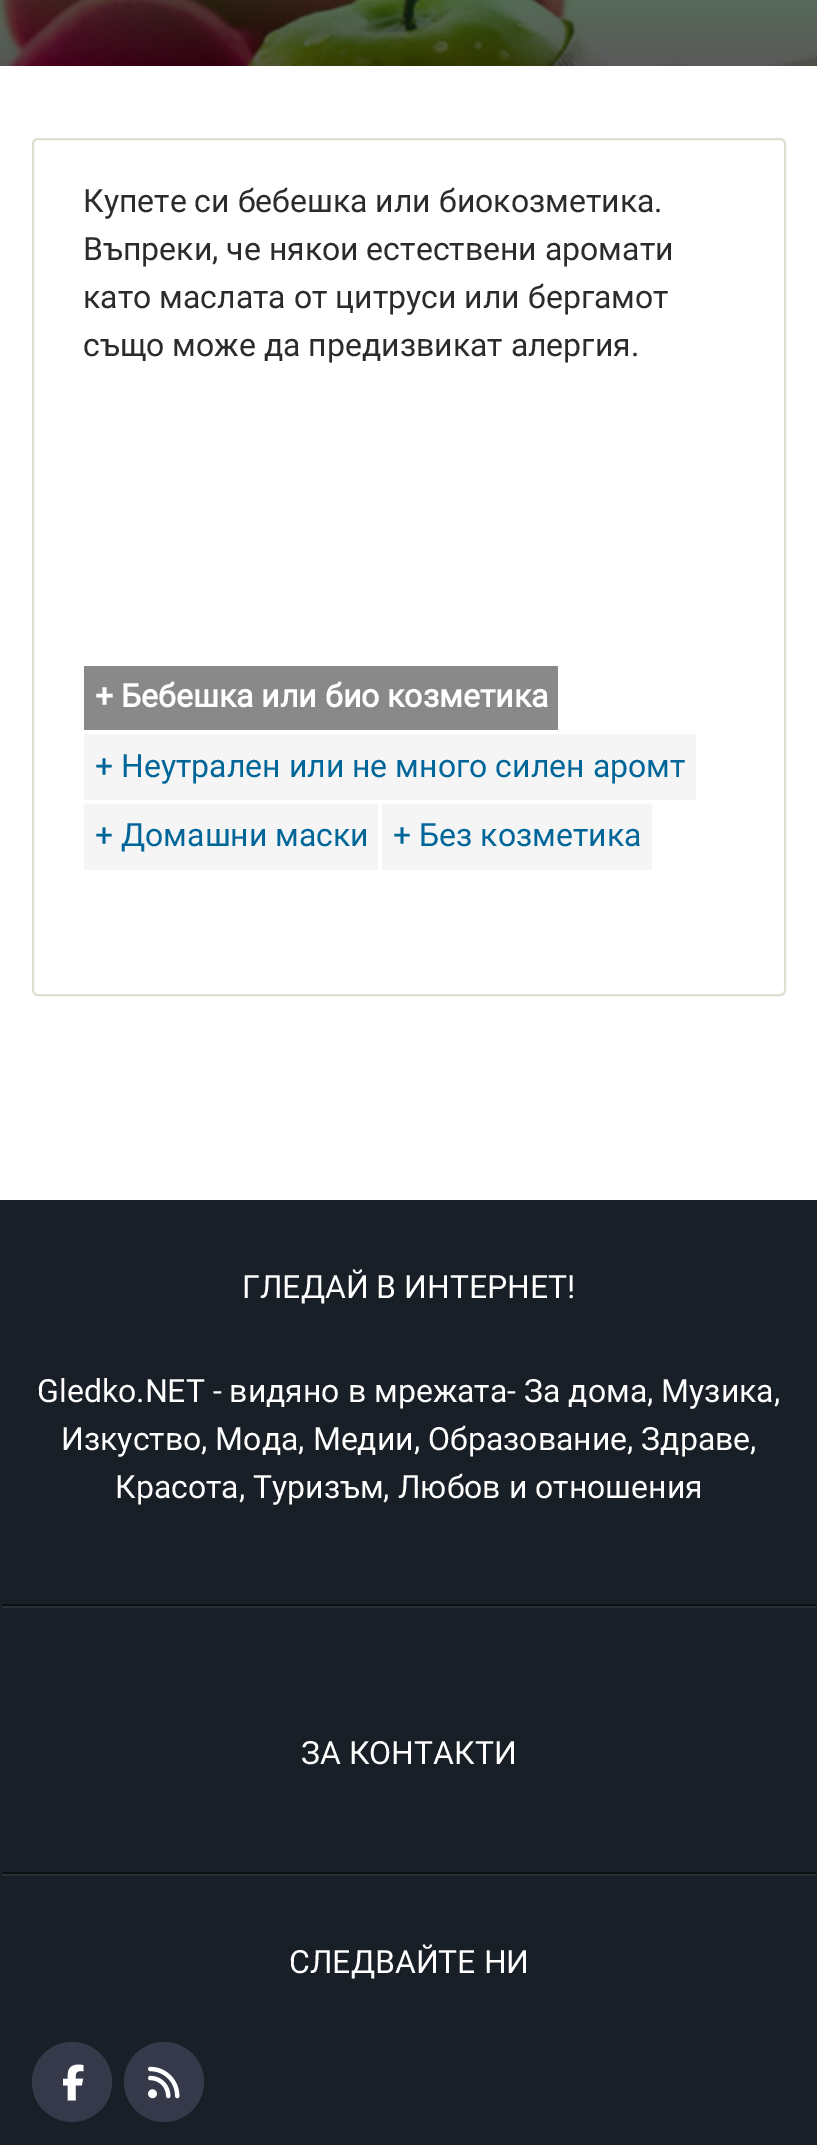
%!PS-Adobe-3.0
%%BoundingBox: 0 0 817 2145
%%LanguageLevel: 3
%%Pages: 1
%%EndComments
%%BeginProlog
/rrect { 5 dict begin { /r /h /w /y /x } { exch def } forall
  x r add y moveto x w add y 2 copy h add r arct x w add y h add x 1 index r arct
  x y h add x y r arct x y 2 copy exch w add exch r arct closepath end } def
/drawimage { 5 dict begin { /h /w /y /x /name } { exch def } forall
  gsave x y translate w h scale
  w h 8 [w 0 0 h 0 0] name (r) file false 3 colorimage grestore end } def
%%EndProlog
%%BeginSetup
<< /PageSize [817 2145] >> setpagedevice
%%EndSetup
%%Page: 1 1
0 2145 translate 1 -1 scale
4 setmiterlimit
1 setgray
0 0 817 2145 rectfill
(images/1.raw) 0 0 817 66 drawimage
0.875 0.875 0.816 setrgbcolor
2 setlinewidth
33 139 752 856 5 rrect stroke
0.537 setgray
84 666 474 64 rectfill
0.961 setgray
84 734 612 66 rectfill
84 804 294 66 rectfill
382 804 270 66 rectfill
0.098 0.122 0.149 setrgbcolor
0 1200 817 945 rectfill
0.161 0.184 0.208 setrgbcolor
2 1606 814 2 rectfill
0.051 0.063 0.075 setrgbcolor
2 1604 814 2 rectfill
0.161 0.184 0.208 setrgbcolor
2 1874 814 2 rectfill
0.051 0.063 0.075 setrgbcolor
2 1872 814 2 rectfill
0.208 0.224 0.29 setrgbcolor
newpath 72 2082 40 0 360 arc closepath fill
(images/2.raw) 63 2064 21 37 drawimage
newpath 164 2082 40 0 360 arc closepath fill
(images/3.raw) 148 2066 32 33 drawimage
/Roboto-Regular [32 0 0 -32 0 0] selectfont
0.161 0.169 0.173 setrgbcolor
83 212 moveto (Купете си бебешка или биокозметика.) show
83 260 moveto (Въпреки, че някои естествени аромати) show
83 308 moveto (като маслата от цитруси или бергамот) show
83 356 moveto (също може да предизвикат алергия.) show
/Roboto-Bold [32 0 0 -32 0 0] selectfont
1 setgray
95 707 moveto (+ Бебешка или био козметика) show
/Roboto-Regular [32 0 0 -32 0 0] selectfont
0 0.4 0.6 setrgbcolor
95 777 moveto (+ Неутрален или не много силен аромт) show
95 846 moveto (+ Домашни маски) show
393 846 moveto (+ Без козметика) show
1 setgray
242 1298 moveto (ГЛЕДАЙ В ИНТЕРНЕТ!) show
37 1402 moveto (Gledko.NET - видяно в мрежата- За дома, Музика,) show
61 1450 moveto (Изкуство, Мода, Медии, Образование, Здраве,) show
115 1498 moveto (Красота, Туризъм, Любов и отношения) show
301 1764 moveto (ЗА КОНТАКТИ) show
289 1973 moveto (СЛЕДВАЙТЕ НИ) show
showpage
%%EOF
